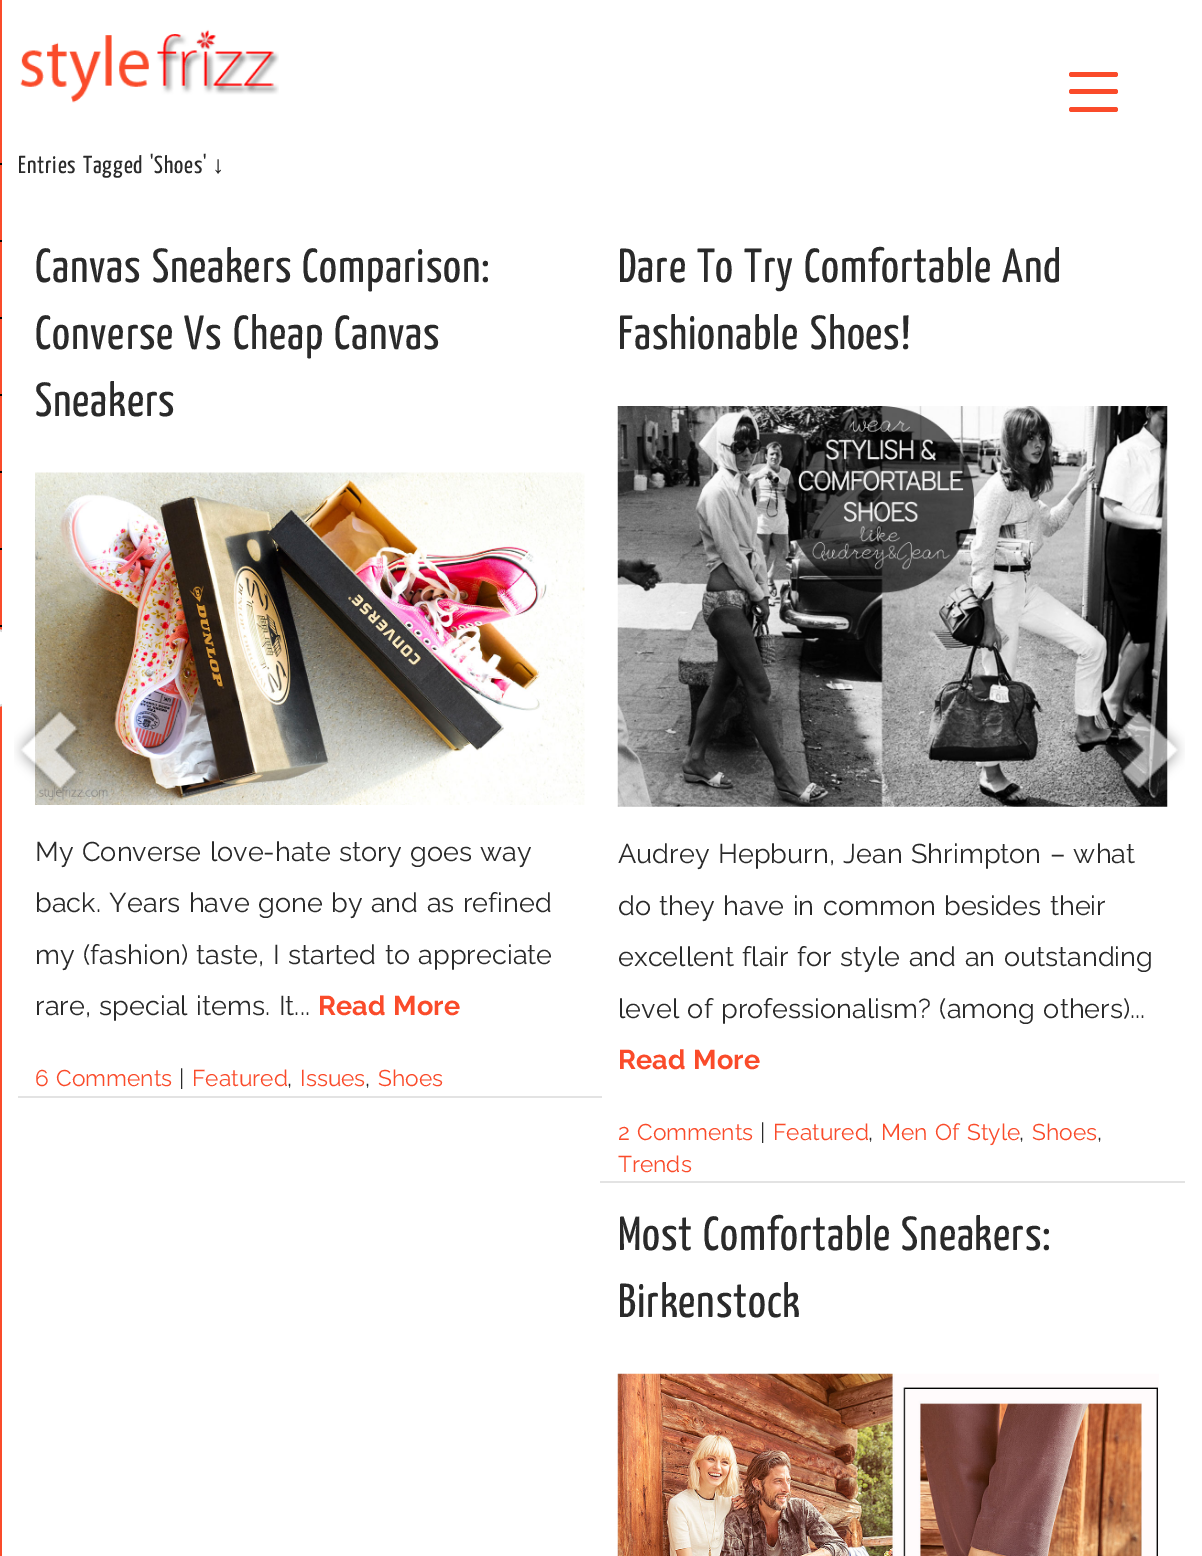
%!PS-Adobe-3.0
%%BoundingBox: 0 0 1202 1556
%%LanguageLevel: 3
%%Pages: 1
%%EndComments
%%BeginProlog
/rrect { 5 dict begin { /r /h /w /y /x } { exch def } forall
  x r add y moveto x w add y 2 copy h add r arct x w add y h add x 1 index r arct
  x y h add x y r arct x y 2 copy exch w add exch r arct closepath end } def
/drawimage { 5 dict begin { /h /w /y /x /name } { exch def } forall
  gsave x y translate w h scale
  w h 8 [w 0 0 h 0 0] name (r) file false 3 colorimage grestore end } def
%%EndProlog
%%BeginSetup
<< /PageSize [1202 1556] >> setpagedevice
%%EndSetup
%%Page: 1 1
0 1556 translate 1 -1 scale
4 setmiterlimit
1 setgray
0 0 1202 1556 rectfill
0.98 0.294 0.165 setrgbcolor
0 0 2 1556 rectfill
0 setgray
0 163 2 2 rectfill
0 240 2 2 rectfill
0 317 2 2 rectfill
0 394 2 2 rectfill
0 471 2 2 rectfill
0 548 2 2 rectfill
0 625 2 2 rectfill
(images/2.raw) 35 472 550 333 drawimage
(images/5.raw) 14 704 70 92 drawimage
gsave
0 0 2 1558 rectclip
1 setgray
-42 628 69 80 40 rrect gsave fill grestore
0.855 setgray
2 setlinewidth
stroke
grestore
0.98 0.294 0.165 setrgbcolor
1069 89 49 5 2.5 rrect fill
1069 72 49 5 2.5 rrect fill
1069 107 49 5 2.5 rrect fill
(images/1.raw) 20 29 259 74 drawimage
0.89 setgray
18 1096 584 2 rectfill
600 1181 585 2 rectfill
(images/3.raw) 617 406 551 401 drawimage
(images/4.raw) 617 1373 542 183 drawimage
(images/6.raw) 1116 709 69 82 drawimage
/YanoneKaffeesatz-ExtraLight [24.5 0 0 -24.5 0 0] selectfont
0.165 setgray
18 173 moveto 1.5 0 32 0.9 0 (Entries Tagged 'Shoes') awidthshow
/LiberationSans-Regular [24.5 0 0 -24.5 0 0] selectfont
212 173 moveto 0.9 0 (↓) ashow
/YanoneKaffeesatz-ExtraLight [47.75 0 0 -47.75 0 0] selectfont
35 282 moveto 1.5 0 32 0.9 0 (Canvas Sneakers Comparison:) awidthshow
35 349 moveto 1.5 0 32 0.9 0 (Converse Vs Cheap Canvas) awidthshow
35 416 moveto 0.9 0 (Sneakers) ashow
/Raleway-Regular [27.1 0 0 -27.1 0 0] selectfont
35 861 moveto 1.5 0 32 (My Converse love-hate story goes way) widthshow
35 912 moveto 1.5 0 32 (back. Years have gone by and as refined) widthshow
35 964 moveto 1.5 0 32 (my \(fashion\) taste, I started to appreciate) widthshow
35 1015 moveto 1.5 0 32 (rare, special items. It...) widthshow
/Raleway-Bold [27.1 0 0 -27.1 0 0] selectfont
0.98 0.294 0.165 setrgbcolor
318 1015 moveto 1.5 0 32 (Read More) widthshow
/Raleway-Regular [22.75 0 0 -22.75 0 0] selectfont
35 1086 moveto 1.5 0 32 (6 Comments) widthshow
0.165 setgray
179 1086 moveto (|) show
0.98 0.294 0.165 setrgbcolor
192 1086 moveto (Featured) show
0.165 setgray
287 1086 moveto (,) show
0.98 0.294 0.165 setrgbcolor
300 1086 moveto (Issues) show
0.165 setgray
365 1086 moveto (,) show
0.98 0.294 0.165 setrgbcolor
378 1086 moveto (Shoes) show
/YanoneKaffeesatz-ExtraLight [47.75 0 0 -47.75 0 0] selectfont
0.165 setgray
618 282 moveto 1.5 0 32 0.9 0 (Dare To Try Comfortable And) awidthshow
618 349 moveto 1.5 0 32 0.9 0 (Fashionable Shoes!) awidthshow
/Raleway-Regular [27.1 0 0 -27.1 0 0] selectfont
618 863 moveto 1.5 0 32 (Audrey Hepburn, Jean Shrimpton – what) widthshow
618 915 moveto 1.5 0 32 (do they have in common besides their) widthshow
618 966 moveto 1.5 0 32 (excellent flair for style and an outstanding) widthshow
618 1018 moveto 1.5 0 32 (level of professionalism? \(among others\)...) widthshow
/Raleway-Bold [27.1 0 0 -27.1 0 0] selectfont
0.98 0.294 0.165 setrgbcolor
618 1069 moveto 1.5 0 32 (Read More) widthshow
/Raleway-Regular [22.75 0 0 -22.75 0 0] selectfont
618 1140 moveto 1.5 0 32 (2 Comments) widthshow
0.165 setgray
760 1140 moveto (|) show
0.98 0.294 0.165 setrgbcolor
773 1140 moveto (Featured) show
0.165 setgray
868 1140 moveto (,) show
0.98 0.294 0.165 setrgbcolor
881 1140 moveto 1.5 0 32 (Men Of Style) widthshow
0.165 setgray
1019 1140 moveto (,) show
0.98 0.294 0.165 setrgbcolor
1032 1140 moveto (Shoes) show
0.165 setgray
1097 1140 moveto (,) show
0.98 0.294 0.165 setrgbcolor
618 1172 moveto (Trends) show
/YanoneKaffeesatz-ExtraLight [47.75 0 0 -47.75 0 0] selectfont
0.165 setgray
618 1250 moveto 1.5 0 32 0.9 0 (Most Comfortable Sneakers:) awidthshow
618 1317 moveto 0.9 0 (Birkenstock) ashow
showpage
%%EOF
